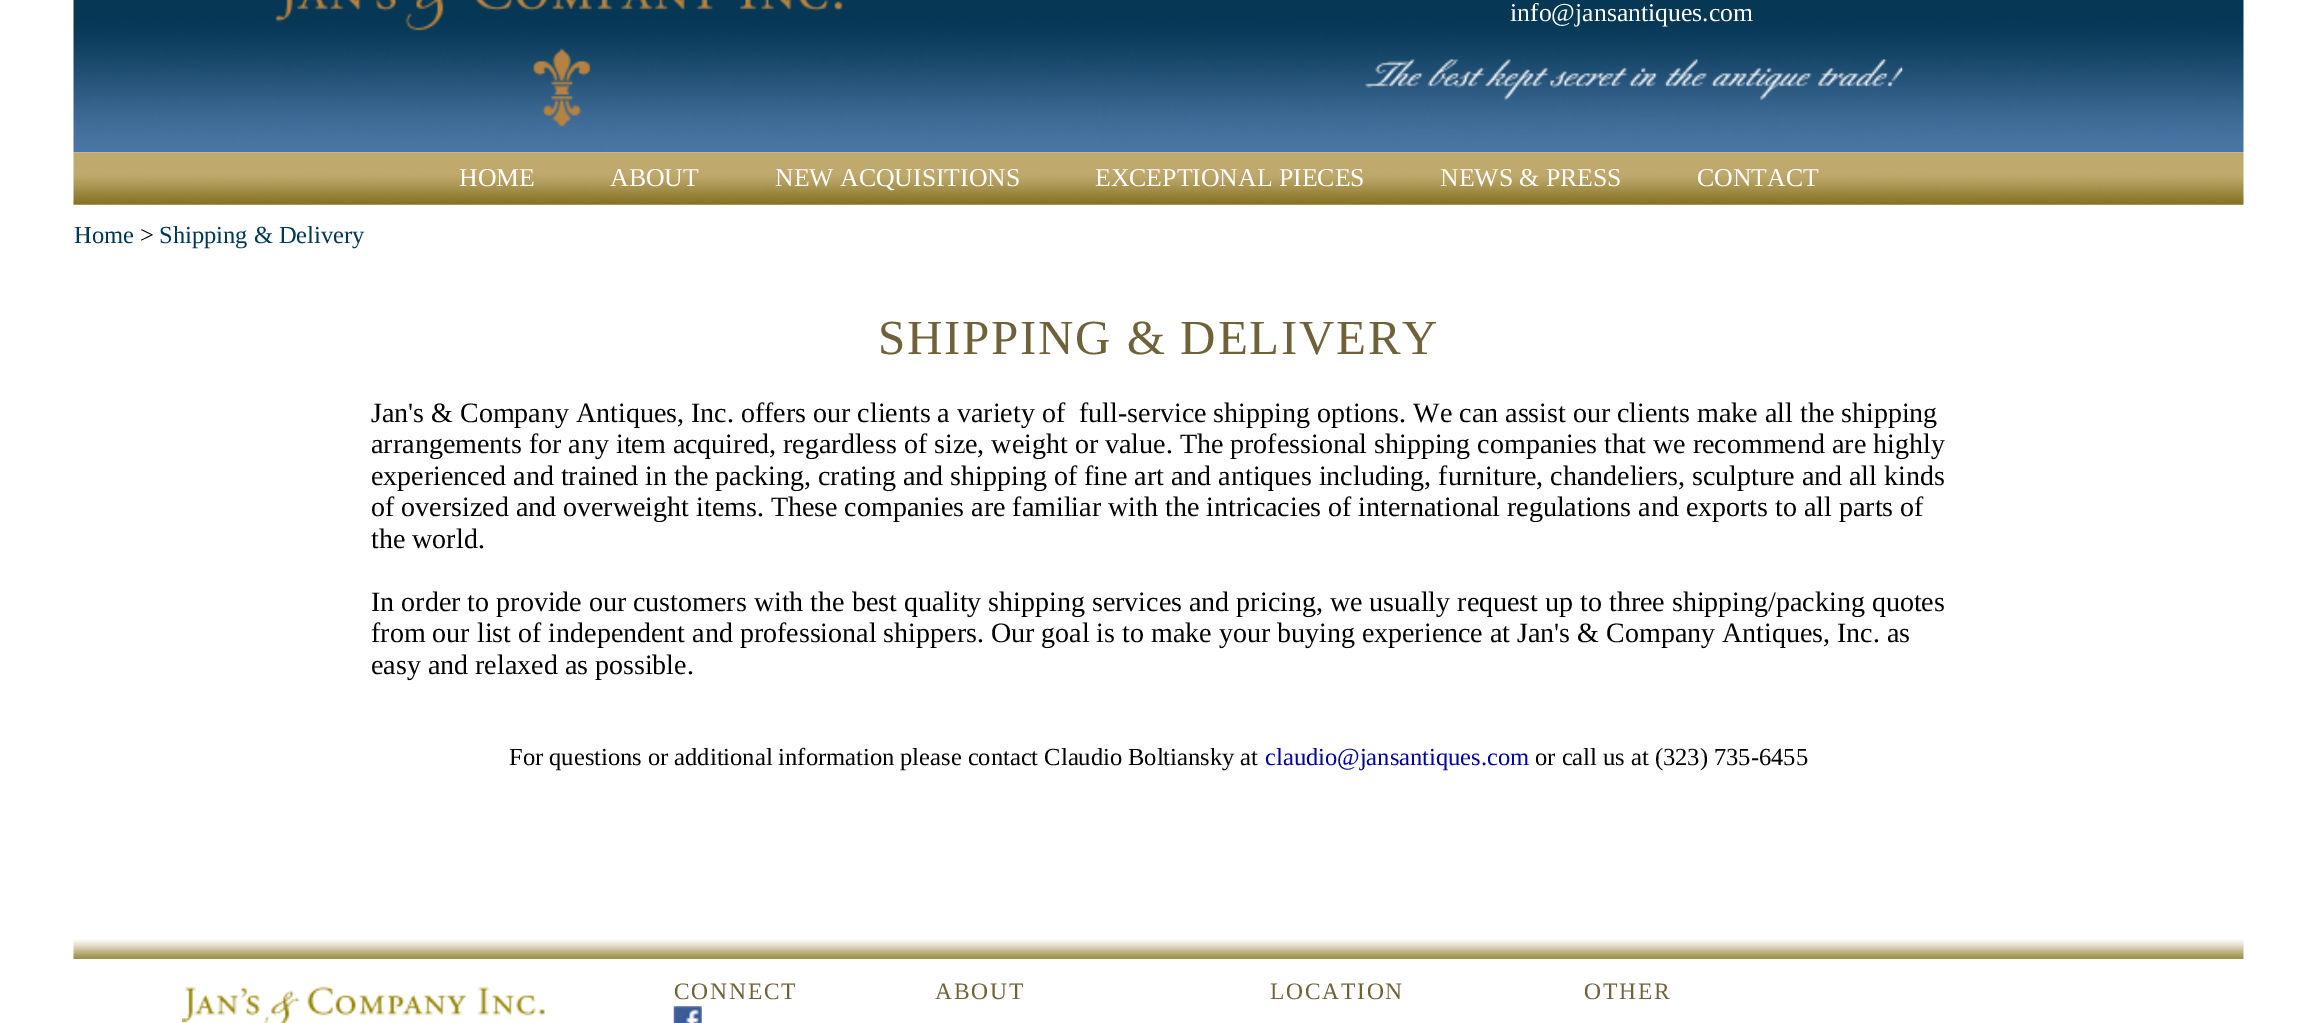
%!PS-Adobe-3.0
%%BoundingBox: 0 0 2316 1023
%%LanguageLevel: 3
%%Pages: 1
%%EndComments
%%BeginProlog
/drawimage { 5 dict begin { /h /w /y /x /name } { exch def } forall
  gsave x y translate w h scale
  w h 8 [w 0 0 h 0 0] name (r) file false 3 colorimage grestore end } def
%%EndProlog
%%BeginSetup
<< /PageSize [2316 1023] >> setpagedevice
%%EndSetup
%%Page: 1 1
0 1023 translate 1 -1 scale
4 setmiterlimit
1 setgray
0 0 2316 1023 rectfill
(images/1.raw) 73 0 2171 153 drawimage
(images/2.raw) 274 0 569 127 drawimage
(images/3.raw) 1365 59 538 41 drawimage
(images/4.raw) 73 152 2171 53 drawimage
(images/5.raw) 73 939 2171 20 drawimage
(images/6.raw) 182 986 363 37 drawimage
(images/7.raw) 673 1006 29 17 drawimage
/LiberationSerif-Regular [25.75 0 0 -25.75 0 0] selectfont
1510 21 moveto (info@jansantiques.com) show
459 186 moveto (HOME) show
610 186 moveto (ABOUT) show
775 186 moveto (NEW ACQUISITIONS) show
1095 186 moveto (EXCEPTIONAL PIECES) show
1440 186 moveto (NEWS & PRESS) show
1697 186 moveto (CONTACT) show
/LiberationSerif-Regular [24.5 0 0 -24.5 0 0] selectfont
0 0.212 0.337 setrgbcolor
74 243 moveto (Home) show
0 setgray
140 243 moveto (>) show
0 0.212 0.337 setrgbcolor
159 243 moveto (Shipping & Delivery) show
/LiberationSerif-Regular [49 0 0 -49 0 0] selectfont
0.435 0.384 0.22 setrgbcolor
878 354 moveto 1.75 0 (SHIPPING & DELIVERY) ashow
/LiberationSerif-Regular [28 0 0 -28 0 0] selectfont
0 setgray
371 422 moveto (Jan's & Company Antiques, Inc. offers our clients a variety of) show
1079 422 moveto (full-service shipping options. We can assist our clients make all the shipping) show
371 453 moveto (arrangements for any item acquired, regardless of size, weight or value. The professional shipping companies that we recommend are highly) show
371 485 moveto (experienced and trained in the packing, crating and shipping of fine art and antiques including, furniture, chandeliers, sculpture and all kinds) show
371 516 moveto (of oversized and overweight items. These companies are familiar with the intricacies of international regulations and exports to all parts of) show
371 548 moveto (the world.) show
371 611 moveto (In order to provide our customers with the best quality shipping services and pricing, we usually request up to three shipping/packing quotes) show
371 642 moveto (from our list of independent and professional shippers. Our goal is to make your buying experience at Jan's & Company Antiques, Inc. as) show
371 674 moveto (easy and relaxed as possible.) show
/LiberationSerif-Regular [24.5 0 0 -24.5 0 0] selectfont
509 765 moveto (For questions or additional information please contact Claudio Boltiansky at) show
0 0 0.627 setrgbcolor
1265 765 moveto (claudio@jansantiques.com) show
0 setgray
1535 765 moveto (or call us at \(323\) 735-6455) show
/LiberationSerif-Regular [23.5 0 0 -23.5 0 0] selectfont
0.435 0.384 0.22 setrgbcolor
674 999 moveto 1.75 0 (CONNECT) ashow
935 999 moveto 1.75 0 (ABOUT) ashow
1270 999 moveto 1.75 0 (LOCATION) ashow
1584 999 moveto 1.75 0 (OTHER) ashow
showpage
%%EOF
